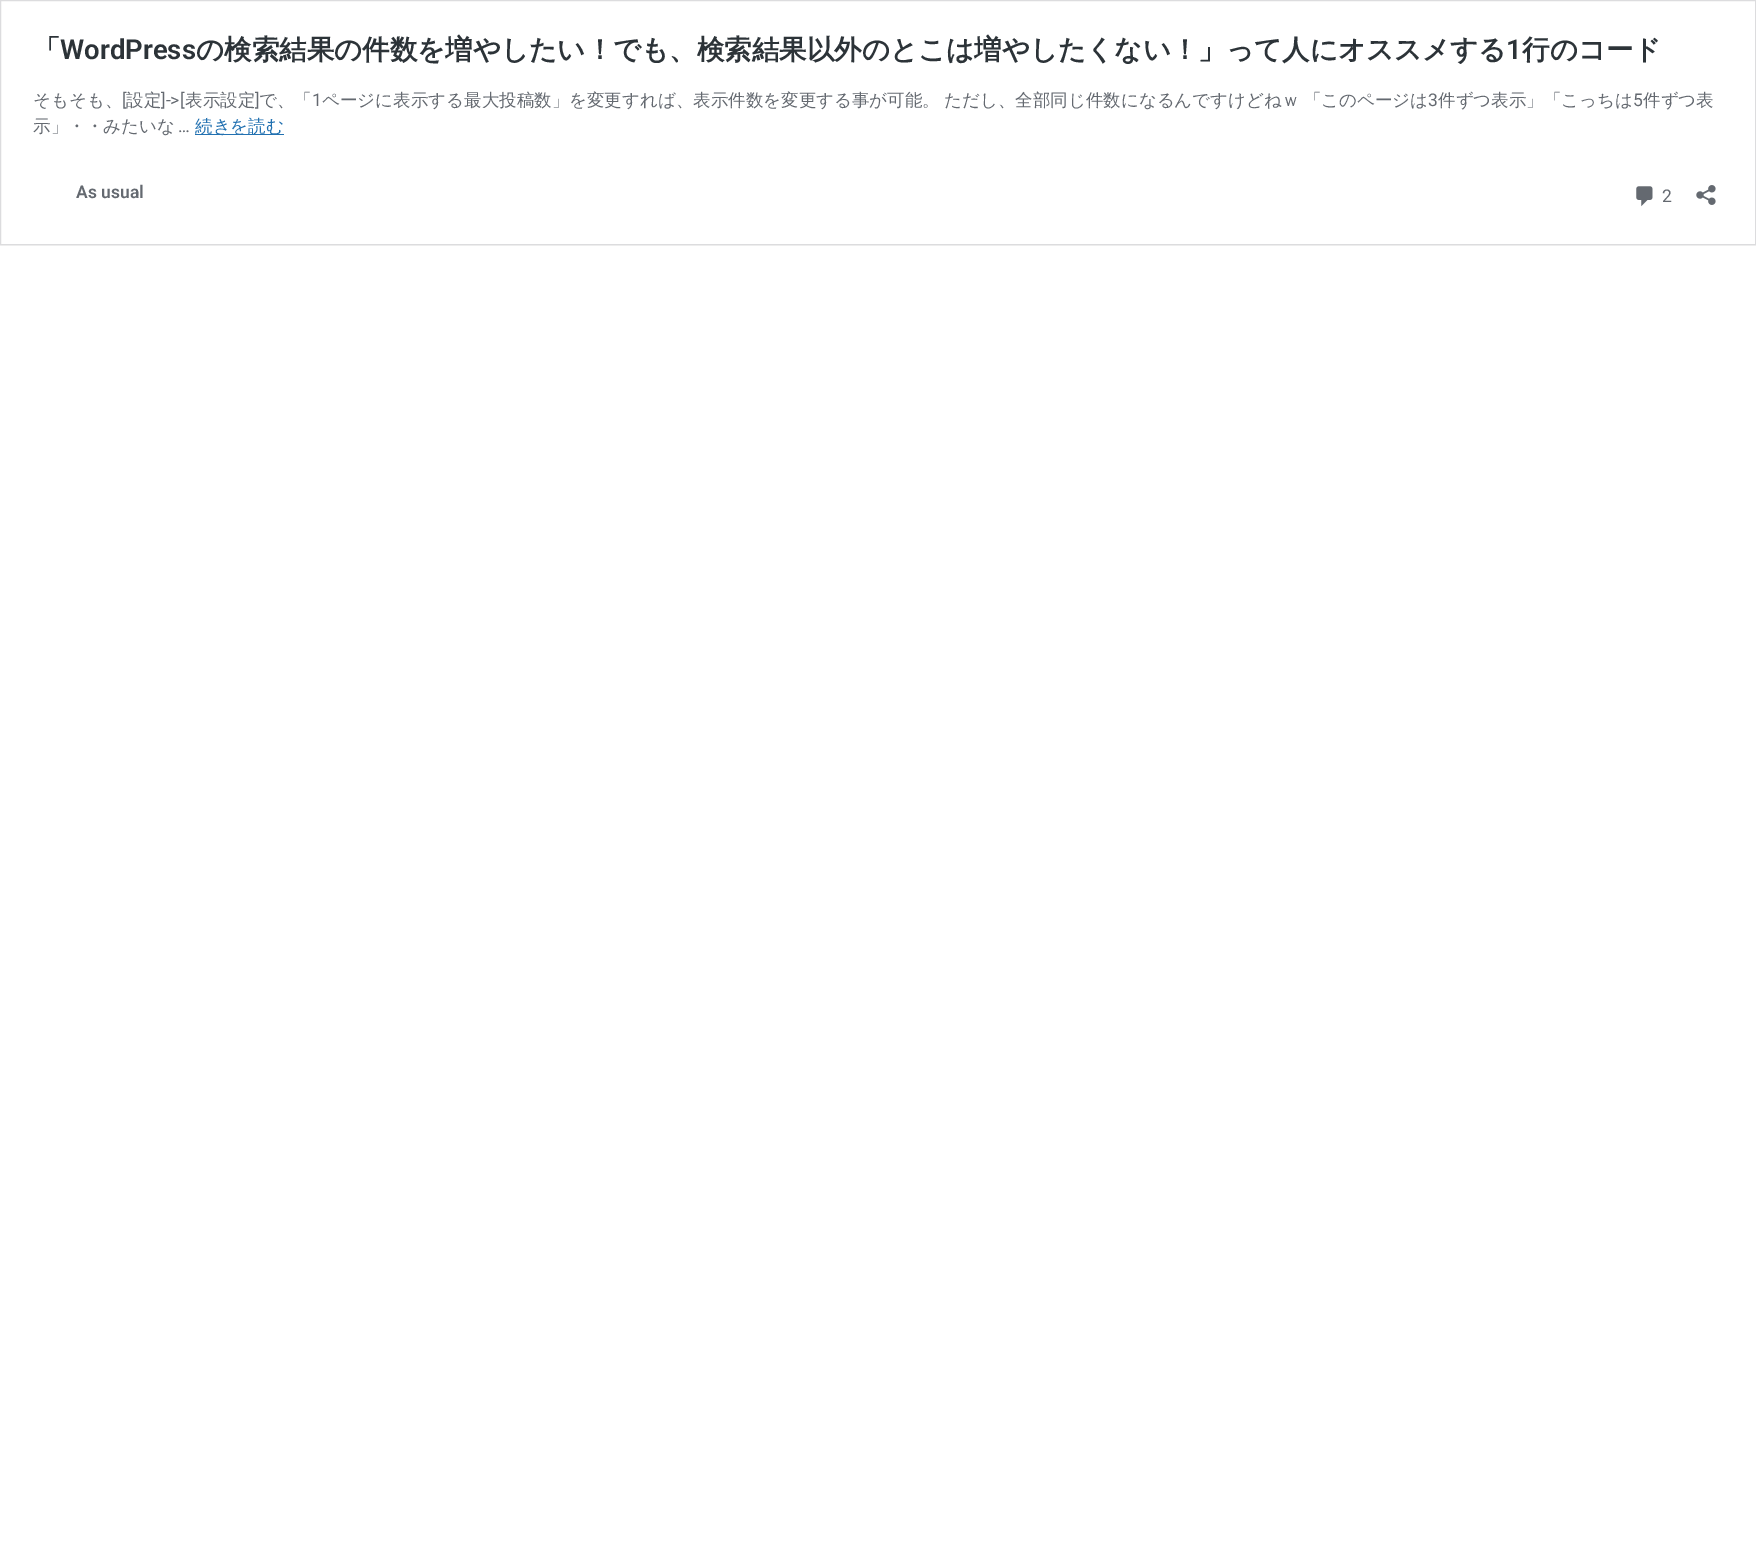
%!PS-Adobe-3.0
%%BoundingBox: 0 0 1756 1543
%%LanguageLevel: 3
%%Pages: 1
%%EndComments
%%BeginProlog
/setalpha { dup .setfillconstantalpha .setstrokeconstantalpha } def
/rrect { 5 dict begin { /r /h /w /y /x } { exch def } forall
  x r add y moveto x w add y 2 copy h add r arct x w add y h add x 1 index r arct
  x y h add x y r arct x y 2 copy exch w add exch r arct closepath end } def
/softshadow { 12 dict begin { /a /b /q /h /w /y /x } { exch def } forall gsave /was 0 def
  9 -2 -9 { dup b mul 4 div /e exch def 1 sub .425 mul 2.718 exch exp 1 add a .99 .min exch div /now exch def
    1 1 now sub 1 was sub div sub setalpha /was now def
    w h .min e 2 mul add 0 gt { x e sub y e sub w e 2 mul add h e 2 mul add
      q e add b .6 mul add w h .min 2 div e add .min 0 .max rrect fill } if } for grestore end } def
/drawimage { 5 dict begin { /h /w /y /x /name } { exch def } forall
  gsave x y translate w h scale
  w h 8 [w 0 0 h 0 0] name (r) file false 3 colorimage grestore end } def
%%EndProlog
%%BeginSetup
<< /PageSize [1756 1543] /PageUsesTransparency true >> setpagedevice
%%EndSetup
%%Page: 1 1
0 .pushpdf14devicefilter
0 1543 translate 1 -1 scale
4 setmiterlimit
1 setgray
0 0 1756 1543 rectfill
gsave
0 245 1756 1 rectclip
0 setgray
0 1 1756 245 0 0.5 0.05 softshadow
grestore
0.863 0.863 0.871 setrgbcolor
0.5 0.5 1755 244 rectstroke
0.133 0.443 0.694 setrgbcolor
195 134 89 1 rectfill
(images/1.raw) 1636 186 17 21 drawimage
(images/2.raw) 1696 185 20 20 drawimage
/WenQuanYiZenHei-Bold [27.5 0 0 -27.5 0 0] selectfont
0.173 0.2 0.22 setrgbcolor
33 59 moveto (「) show
/Roboto-SemiBold [27.5 0 0 -27.5 0 0] selectfont
60 59 moveto (WordPress) show
/WenQuanYiZenHei-Bold [27.5 0 0 -27.5 0 0] selectfont
196 59 moveto (の検索結果の件数を増やしたい！でも、検索結果以外のとこは増やしたくない！」って人にオススメする) show
/Roboto-SemiBold [27.5 0 0 -27.5 0 0] selectfont
1506 59 moveto (1) show
/WenQuanYiZenHei-Bold [27.5 0 0 -27.5 0 0] selectfont
1522 59 moveto (行のコード) show
/WenQuanYiZenHei-Medium [17.5 0 0 -17.5 0 0] selectfont
0.392 0.412 0.439 setrgbcolor
33 106 moveto (そもそも、) show
/Roboto-Regular [17.5 0 0 -17.5 0 0] selectfont
122 106 moveto ([) show
/WenQuanYiZenHei-Medium [17.5 0 0 -17.5 0 0] selectfont
126 106 moveto (設定) show
/Roboto-Regular [17.5 0 0 -17.5 0 0] selectfont
161 106 moveto (]->[) show
/WenQuanYiZenHei-Medium [17.5 0 0 -17.5 0 0] selectfont
185 106 moveto (表示設定) show
/Roboto-Regular [17.5 0 0 -17.5 0 0] selectfont
255 106 moveto (]) show
/WenQuanYiZenHei-Medium [17.5 0 0 -17.5 0 0] selectfont
259 106 moveto (で、「) show
/Roboto-Regular [17.5 0 0 -17.5 0 0] selectfont
312 106 moveto (1) show
/WenQuanYiZenHei-Medium [17.5 0 0 -17.5 0 0] selectfont
322 106 moveto -1 0 32 (ページに表示する最大投稿数」を変更すれば、表示件数を変更する事が可能。 ただし、全部同じ件数になるんですけどねｗ 「このページは) widthshow
/Roboto-Regular [17.5 0 0 -17.5 0 0] selectfont
1428 106 moveto (3) show
/WenQuanYiZenHei-Medium [17.5 0 0 -17.5 0 0] selectfont
1438 106 moveto (件ずつ表示」「こっちは) show
/Roboto-Regular [17.5 0 0 -17.5 0 0] selectfont
1633 106 moveto (5) show
/WenQuanYiZenHei-Medium [17.5 0 0 -17.5 0 0] selectfont
1643 106 moveto (件ずつ表) show
33 132 moveto (示」・・みたいな) show
/Roboto-Regular [17.5 0 0 -17.5 0 0] selectfont
178 132 moveto (…) show
/WenQuanYiZenHei-Medium [17.5 0 0 -17.5 0 0] selectfont
0.133 0.443 0.694 setrgbcolor
195 132 moveto (続きを読む) show
/Roboto-SemiBold [17.5 0 0 -17.5 0 0] selectfont
0.392 0.412 0.439 setrgbcolor
76 198 moveto (As usual) show
/Roboto-Regular [17.5 0 0 -17.5 0 0] selectfont
1662 202 moveto (2) show
.poppdf14devicefilter showpage
%%EOF
